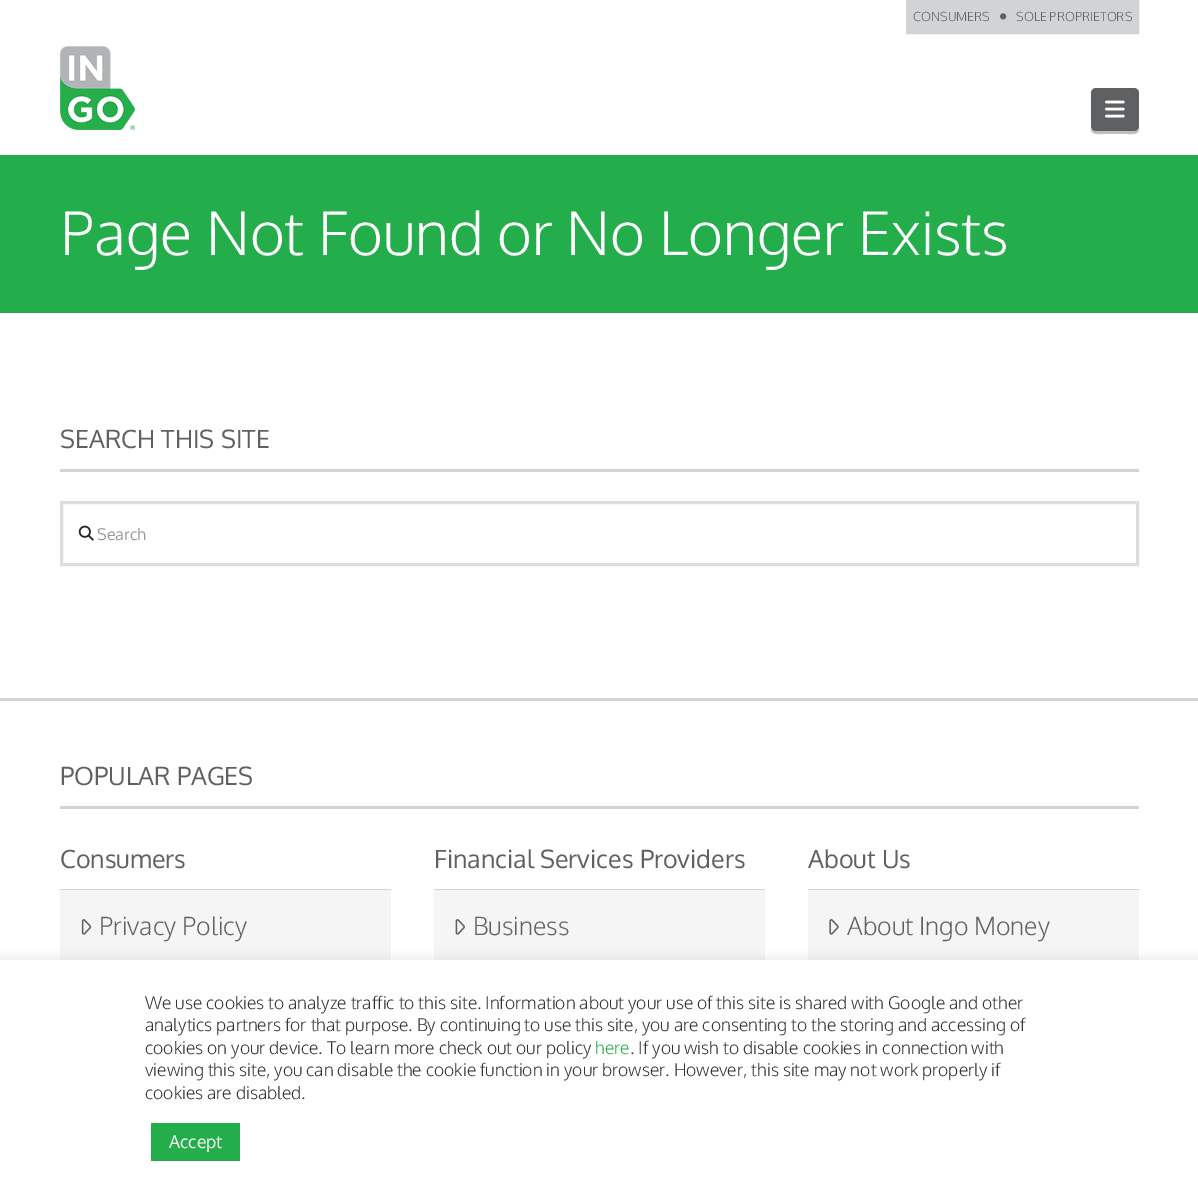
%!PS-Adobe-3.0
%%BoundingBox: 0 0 1198 1198
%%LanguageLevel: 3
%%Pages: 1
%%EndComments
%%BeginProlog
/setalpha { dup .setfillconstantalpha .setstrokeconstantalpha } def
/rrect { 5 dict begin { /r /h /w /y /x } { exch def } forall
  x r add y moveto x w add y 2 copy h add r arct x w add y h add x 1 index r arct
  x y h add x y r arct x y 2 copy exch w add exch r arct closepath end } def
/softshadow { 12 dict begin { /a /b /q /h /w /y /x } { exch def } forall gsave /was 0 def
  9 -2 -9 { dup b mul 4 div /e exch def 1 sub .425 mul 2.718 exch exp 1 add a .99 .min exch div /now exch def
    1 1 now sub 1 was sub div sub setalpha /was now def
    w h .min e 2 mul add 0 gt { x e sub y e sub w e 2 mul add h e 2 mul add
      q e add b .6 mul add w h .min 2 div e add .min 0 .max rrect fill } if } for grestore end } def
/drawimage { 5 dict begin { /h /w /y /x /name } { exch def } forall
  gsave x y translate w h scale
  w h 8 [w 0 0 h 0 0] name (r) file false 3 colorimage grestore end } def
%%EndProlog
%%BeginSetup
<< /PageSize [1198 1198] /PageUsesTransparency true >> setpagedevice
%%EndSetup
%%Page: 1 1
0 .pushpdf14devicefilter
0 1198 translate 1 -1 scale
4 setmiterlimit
1 setgray
0 0 1198 1198 rectfill
0.82 0.827 0.831 setrgbcolor
newpath 909 3 moveto 1136 3 lineto 1136 31 lineto 909 31 lineto closepath gsave fill grestore
6 setlinewidth
stroke
(images/1.raw) 1000 13 7 7 drawimage
(images/2.raw) 60 46 75 84 drawimage
0.749 setgray
newpath 1091 93 moveto 1091 130 lineto 1092 135 1099 134 1102 134 curveto 1128 134 lineto 1131 134 1138 135 1139 130 curveto 1139 93 lineto 1139 126 lineto 1139 129 1137 131 1134 131 curveto 1096 131 lineto 1093 131 1091 129 1091 126 curveto closepath fill
0.373 0.376 0.384 setrgbcolor
1091 88 48 43 5 rrect fill
(images/3.raw) 1105 100 20 18 drawimage
0.137 0.678 0.294 setrgbcolor
0 155 1198 158 rectfill
0.82 0.827 0.831 setrgbcolor
60 469 1079 3 rectfill
0.867 setgray
3 setlinewidth
61.5 502.5 1076 62 rectstroke
(images/4.raw) 78 525 16 16 drawimage
0.82 0.827 0.831 setrgbcolor
0 698 1198 3 rectfill
60 806 1079 3 rectfill
0.961 setgray
60 890 331 70 rectfill
0.82 0.827 0.831 setrgbcolor
60 889 331 1 rectfill
(images/5.raw) 81 919 11 16 drawimage
0.961 setgray
434 890 331 70 rectfill
0.82 0.827 0.831 setrgbcolor
434 889 331 1 rectfill
(images/6.raw) 455 919 10 16 drawimage
0.961 setgray
808 890 331 70 rectfill
0.82 0.827 0.831 setrgbcolor
808 889 331 1 rectfill
(images/7.raw) 829 919 10 16 drawimage
0.675 0.671 0.671 setrgbcolor
0 959 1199 239 0 6 0.3 softshadow
1 setgray
0 960 1198 238 rectfill
0.137 0.678 0.294 setrgbcolor
151 1123 89 38 rectfill
/Oxygen-Light [12.5 0 0 -12.5 0 0] selectfont
0.373 0.376 0.384 setrgbcolor
913 21 moveto (CONSUMERS) show
1016 21 moveto (SOLE PROPRIETORS) show
/Oxygen-Light [60 0 0 -60 0 0] selectfont
1 setgray
60 255 moveto (Page Not Found or No Longer Exists) show
/Oxygen-Regular [25 0 0 -25 0 0] selectfont
0.373 0.376 0.384 setrgbcolor
60 448 moveto (SEARCH THIS SITE) show
/Oxygen-Regular [16 0 0 -16 0 0] selectfont
0.6 setgray
97 540 moveto (Search) show
/Oxygen-Regular [25 0 0 -25 0 0] selectfont
0.373 0.376 0.384 setrgbcolor
60 785 moveto (POPULAR PAGES) show
60 868 moveto (Consumers) show
/Oxygen-Light [25 0 0 -25 0 0] selectfont
99 935 moveto (Privacy Policy) show
/Oxygen-Regular [25 0 0 -25 0 0] selectfont
434 868 moveto (Financial Services Providers) show
/Oxygen-Light [25 0 0 -25 0 0] selectfont
473 935 moveto (Business) show
/Oxygen-Regular [25 0 0 -25 0 0] selectfont
808 868 moveto (About Us) show
/Oxygen-Light [25 0 0 -25 0 0] selectfont
847 935 moveto (About Ingo Money) show
/Oxygen-Light [17.5 0 0 -17.5 0 0] selectfont
0.2 setgray
145 1009 moveto (We use cookies to analyze traffic to this site. Information about your use of this site is shared with Google and other) show
145 1031 moveto (analytics partners for that purpose. By continuing to use this site, you are consenting to the storing and accessing of) show
145 1054 moveto (cookies on your device. To learn more check out our policy) show
0.137 0.678 0.294 setrgbcolor
595 1054 moveto (here) show
0.2 setgray
630 1054 moveto (. If you wish to disable cookies in connection with) show
145 1076 moveto (viewing this site, you can disable the cookie function in your browser. However, this site may not work properly if) show
145 1099 moveto (cookies are disabled.) show
/Oxygen-Regular [17.5 0 0 -17.5 0 0] selectfont
1 setgray
169 1148 moveto (Accept) show
.poppdf14devicefilter showpage
%%EOF
